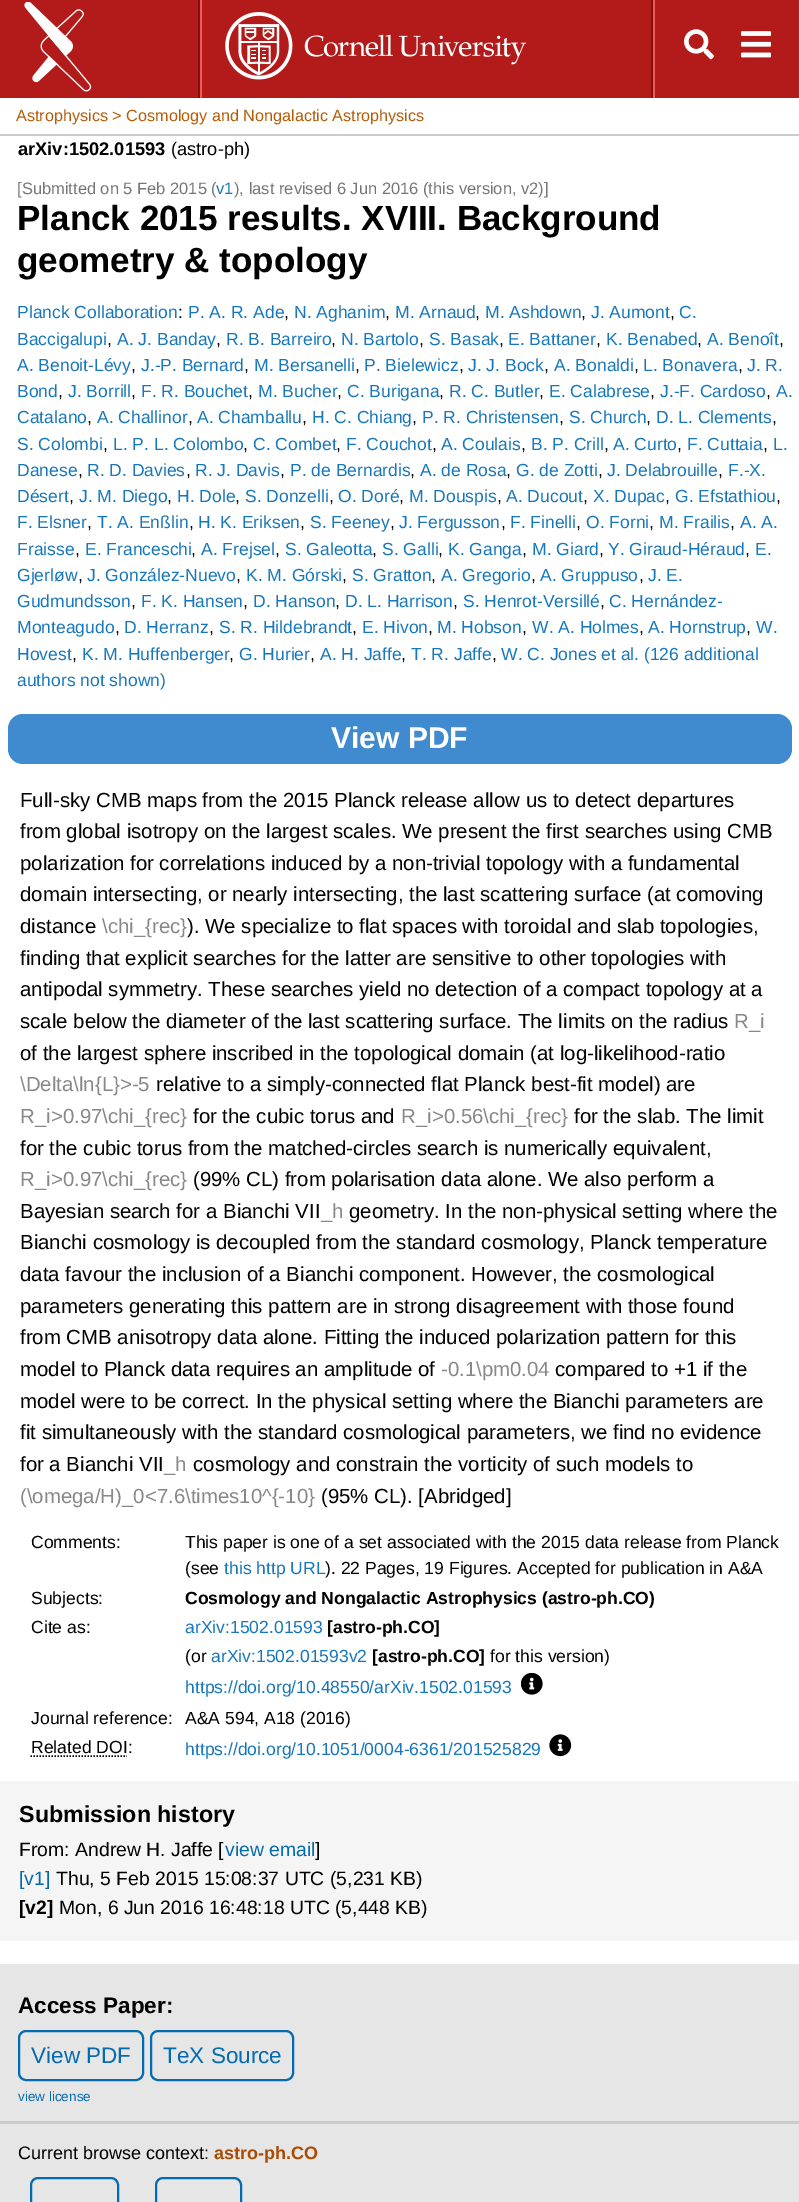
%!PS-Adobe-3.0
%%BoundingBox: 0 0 799 2202
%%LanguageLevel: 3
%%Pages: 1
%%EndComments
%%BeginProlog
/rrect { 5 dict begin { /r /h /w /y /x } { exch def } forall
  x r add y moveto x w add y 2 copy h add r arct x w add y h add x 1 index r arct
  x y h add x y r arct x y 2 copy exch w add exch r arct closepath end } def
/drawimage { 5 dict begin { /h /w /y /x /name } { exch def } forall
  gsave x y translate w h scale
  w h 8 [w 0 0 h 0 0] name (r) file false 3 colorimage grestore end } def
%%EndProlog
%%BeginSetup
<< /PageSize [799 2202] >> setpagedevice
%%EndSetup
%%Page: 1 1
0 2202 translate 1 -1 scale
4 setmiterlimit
1 setgray
0 0 799 2202 rectfill
0.702 0.106 0.106 setrgbcolor
0 0 799 98 rectfill
0.451 0.082 0.082 setrgbcolor
198 0 2 98 rectfill
(images/1.raw) 24 2 68 90 drawimage
651 0 2 98 rectfill
0.988 0.333 0.329 setrgbcolor
200 0 2 98 rectfill
(images/2.raw) 225 12 302 68 drawimage
653 0 2 98 rectfill
(images/3.raw) 684 29 30 31 drawimage
(images/4.raw) 741 31 30 27 drawimage
0.8 setgray
0 134 799 2 rectfill
0.251 0.545 0.816 setrgbcolor
8 714 784 50 15 rrect fill
(images/5.raw) 521 1673 22 22 drawimage
0 setgray
1.5 setlinewidth
[1.5 1.5] 0 setdash
newpath 30.5 1756 moveto 127 1756 lineto stroke
(images/6.raw) 549 1734 23 23 drawimage
0.961 setgray
0 1781 799 160 rectfill
0.902 setgray
0 1964 799 238 rectfill
0.016 0.42 0.686 setrgbcolor
2 setlinewidth
[] 0 setdash
19 2031 124 49 7 rrect stroke
151 2031 142 49 7 rrect stroke
0.8 setgray
0 2121 799 3 rectfill
0.016 0.42 0.686 setrgbcolor
31 2178 87 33 7 rrect stroke
156 2178 85 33 7 rrect stroke
/LiberationSans-Regular [16.2 0 0 -16.2 0 0] selectfont
0.71 0.361 0.024 setrgbcolor
16 121 moveto (Astrophysics > Cosmology and Nongalactic Astrophysics) show
/LiberationSans-Bold [18.25 0 0 -18.25 0 0] selectfont
0 setgray
18 155 moveto (arXiv:1502.01593) show
/LiberationSans-Regular [18.25 0 0 -18.25 0 0] selectfont
171 155 moveto (\(astro-ph\)) show
/LiberationSans-Regular [16.5 0 0 -16.5 0 0] selectfont
0.463 setgray
17 194 moveto ([Submitted on 5 Feb 2015 \() show
0.09 0.467 0.737 setrgbcolor
216 194 moveto (v1) show
0.463 setgray
234 194 moveto (\), last revised 6 Jun 2016 \(this version, v2\)]) show
/LiberationSans-Bold [35 0 0 -35 0 0] selectfont
0 setgray
17 230 moveto (Planck 2015 results. XVIII. Background) show
17 272 moveto (geometry & topology) show
/LiberationSans-Regular [17.5 0 0 -17.5 0 0] selectfont
0.09 0.467 0.737 setrgbcolor
17 318 moveto (Planck Collaboration) show
0 setgray
178 318 moveto (:) show
0.09 0.467 0.737 setrgbcolor
188 318 moveto (P. A. R. Ade) show
294 318 moveto (N. Aghanim) show
395 318 moveto (M. Arnaud) show
485 318 moveto (M. Ashdown) show
591 318 moveto (J. Aumont) show
679 318 moveto (C.) show
0 setgray
284 318 moveto (,) show
385 318 moveto (,) show
475 318 moveto (,) show
581 318 moveto (,) show
670 318 moveto (,) show
0.09 0.467 0.737 setrgbcolor
17 345 moveto (Baccigalupi) show
0 setgray
107 345 moveto (,) show
0.09 0.467 0.737 setrgbcolor
117 345 moveto (A. J. Banday) show
0 setgray
216 345 moveto (,) show
0.09 0.467 0.737 setrgbcolor
226 345 moveto (R. B. Barreiro) show
0 setgray
331 345 moveto (,) show
0.09 0.467 0.737 setrgbcolor
341 345 moveto (N. Bartolo) show
0 setgray
419 345 moveto (,) show
0.09 0.467 0.737 setrgbcolor
429 345 moveto (S. Basak) show
0 setgray
499 345 moveto (,) show
0.09 0.467 0.737 setrgbcolor
508 345 moveto (E. Battaner) show
0 setgray
596 345 moveto (,) show
0.09 0.467 0.737 setrgbcolor
606 345 moveto (K. Benabed) show
0 setgray
697 345 moveto (,) show
0.09 0.467 0.737 setrgbcolor
707 345 moveto (A. Benoît) show
0 setgray
779 345 moveto (,) show
0.09 0.467 0.737 setrgbcolor
17 371 moveto (A. Benoit-Lévy) show
0 setgray
131 371 moveto (,) show
0.09 0.467 0.737 setrgbcolor
141 371 moveto (J.-P. Bernard) show
0 setgray
244 371 moveto (,) show
0.09 0.467 0.737 setrgbcolor
254 371 moveto (M. Bersanelli) show
0 setgray
355 371 moveto (,) show
0.09 0.467 0.737 setrgbcolor
364 371 moveto (P. Bielewicz) show
0 setgray
459 371 moveto (,) show
0.09 0.467 0.737 setrgbcolor
468 371 moveto (J. J. Bock) show
0 setgray
544 371 moveto (,) show
0.09 0.467 0.737 setrgbcolor
554 371 moveto (A. Bonaldi) show
0 setgray
634 371 moveto (,) show
0.09 0.467 0.737 setrgbcolor
643 371 moveto (L. Bonavera) show
0 setgray
738 371 moveto (,) show
0.09 0.467 0.737 setrgbcolor
747 371 moveto (J. R.) show
17 397 moveto (Bond) show
68 397 moveto (J. Borrill) show
141 397 moveto (F. R. Bouchet) show
258 397 moveto (M. Bucher) show
347 397 moveto (C. Burigana) show
449 397 moveto (R. C. Butler) show
549 397 moveto (E. Calabrese) show
660 397 moveto (J.-F. Cardoso) show
776 397 moveto (A.) show
0 setgray
58 397 moveto (,) show
131 397 moveto (,) show
248 397 moveto (,) show
337 397 moveto (,) show
439 397 moveto (,) show
539 397 moveto (,) show
650 397 moveto (,) show
766 397 moveto (,) show
0.09 0.467 0.737 setrgbcolor
17 423 moveto (Catalano) show
0 setgray
87 423 moveto (,) show
0.09 0.467 0.737 setrgbcolor
97 423 moveto (A. Challinor) show
0 setgray
188 423 moveto (,) show
0.09 0.467 0.737 setrgbcolor
197 423 moveto (A. Chamballu) show
0 setgray
302 423 moveto (,) show
0.09 0.467 0.737 setrgbcolor
312 423 moveto (H. C. Chiang) show
0 setgray
412 423 moveto (,) show
0.09 0.467 0.737 setrgbcolor
422 423 moveto (P. R. Christensen) show
0 setgray
559 423 moveto (,) show
0.09 0.467 0.737 setrgbcolor
569 423 moveto (S. Church) show
0 setgray
646 423 moveto (,) show
0.09 0.467 0.737 setrgbcolor
656 423 moveto (D. L. Clements) show
0 setgray
772 423 moveto (,) show
0.09 0.467 0.737 setrgbcolor
17 450 moveto (S. Colombi) show
113 450 moveto (L. P. L. Colombo) show
253 450 moveto (C. Combet) show
346 450 moveto (F. Couchot) show
441 450 moveto (A. Coulais) show
531 450 moveto (B. P. Crill) show
613 450 moveto (A. Curto) show
687 450 moveto (F. Cuttaia) show
773 450 moveto (L.) show
0 setgray
103 450 moveto (,) show
243 450 moveto (,) show
336 450 moveto (,) show
432 450 moveto (,) show
521 450 moveto (,) show
604 450 moveto (,) show
677 450 moveto (,) show
763 450 moveto (,) show
0.09 0.467 0.737 setrgbcolor
17 476 moveto (Danese) show
87 476 moveto (R. D. Davies) show
195 476 moveto (R. J. Davis) show
290 476 moveto (P. de Bernardis) show
420 476 moveto (A. de Rosa) show
516 476 moveto (G. de Zotti) show
607 476 moveto (J. Delabrouille) show
728 476 moveto (F.-X.) show
0 setgray
78 476 moveto (,) show
186 476 moveto (,) show
280 476 moveto (,) show
410 476 moveto (,) show
506 476 moveto (,) show
598 476 moveto (,) show
718 476 moveto (,) show
0.09 0.467 0.737 setrgbcolor
17 502 moveto (Désert) show
0 setgray
69 502 moveto (,) show
0.09 0.467 0.737 setrgbcolor
79 502 moveto (J. M. Diego) show
0 setgray
167 502 moveto (,) show
0.09 0.467 0.737 setrgbcolor
177 502 moveto (H. Dole) show
0 setgray
235 502 moveto (,) show
0.09 0.467 0.737 setrgbcolor
245 502 moveto (S. Donzelli) show
0 setgray
329 502 moveto (,) show
0.09 0.467 0.737 setrgbcolor
338 502 moveto (O. Doré) show
0 setgray
399 502 moveto (,) show
0.09 0.467 0.737 setrgbcolor
409 502 moveto (M. Douspis) show
0 setgray
497 502 moveto (,) show
0.09 0.467 0.737 setrgbcolor
506 502 moveto (A. Ducout) show
0 setgray
583 502 moveto (,) show
0.09 0.467 0.737 setrgbcolor
593 502 moveto (X. Dupac) show
0 setgray
665 502 moveto (,) show
0.09 0.467 0.737 setrgbcolor
675 502 moveto (G. Efstathiou) show
0 setgray
776 502 moveto (,) show
0.09 0.467 0.737 setrgbcolor
17 528 moveto (F. Elsner) show
97 528 moveto (T. A. Enßlin) show
198 528 moveto (H. K. Eriksen) show
310 528 moveto (S. Feeney) show
399 528 moveto (J. Fergusson) show
510 528 moveto (F. Finelli) show
586 528 moveto (O. Forni) show
659 528 moveto (M. Frailis) show
740 528 moveto (A. A.) show
0 setgray
87 528 moveto (,) show
189 528 moveto (,) show
300 528 moveto (,) show
390 528 moveto (,) show
501 528 moveto (,) show
576 528 moveto (,) show
649 528 moveto (,) show
730 528 moveto (,) show
0.09 0.467 0.737 setrgbcolor
17 555 moveto (Fraisse) show
85 555 moveto (E. Franceschi) show
201 555 moveto (A. Frejsel) show
285 555 moveto (S. Galeotta) show
382 555 moveto (S. Galli) show
448 555 moveto (K. Ganga) show
532 555 moveto (M. Giard) show
608 555 moveto (Y. Giraud-Héraud) show
755 555 moveto (E.) show
0 setgray
75 555 moveto (,) show
191 555 moveto (,) show
275 555 moveto (,) show
372 555 moveto (,) show
438 555 moveto (,) show
522 555 moveto (,) show
599 555 moveto (,) show
745 555 moveto (,) show
0.09 0.467 0.737 setrgbcolor
17 581 moveto (Gjerløw) show
0 setgray
78 581 moveto (,) show
0.09 0.467 0.737 setrgbcolor
87 581 moveto (J. González-Nuevo) show
0 setgray
236 581 moveto (,) show
0.09 0.467 0.737 setrgbcolor
246 581 moveto (K. M. Górski) show
0 setgray
342 581 moveto (,) show
0.09 0.467 0.737 setrgbcolor
352 581 moveto (S. Gratton) show
0 setgray
431 581 moveto (,) show
0.09 0.467 0.737 setrgbcolor
441 581 moveto (A. Gregorio) show
0 setgray
531 581 moveto (,) show
0.09 0.467 0.737 setrgbcolor
540 581 moveto (A. Gruppuso) show
0 setgray
639 581 moveto (,) show
0.09 0.467 0.737 setrgbcolor
648 581 moveto (J. E.) show
17 607 moveto (Gudmundsson) show
0 setgray
131 607 moveto (,) show
0.09 0.467 0.737 setrgbcolor
141 607 moveto (F. K. Hansen) show
0 setgray
243 607 moveto (,) show
0.09 0.467 0.737 setrgbcolor
253 607 moveto (D. Hanson) show
0 setgray
335 607 moveto (,) show
0.09 0.467 0.737 setrgbcolor
345 607 moveto (D. L. Harrison) show
0 setgray
453 607 moveto (,) show
0.09 0.467 0.737 setrgbcolor
463 607 moveto (S. Henrot-Versillé) show
0 setgray
600 607 moveto (,) show
0.09 0.467 0.737 setrgbcolor
609 607 moveto (C. Hernández-) show
17 633 moveto (Monteagudo) show
124 633 moveto (D. Herranz) show
219 633 moveto (S. R. Hildebrandt) show
362 633 moveto (E. Hivon) show
437 633 moveto (M. Hobson) show
532 633 moveto (W. A. Holmes) show
648 633 moveto (A. Hornstrup) show
756 633 moveto (W.) show
0 setgray
115 633 moveto (,) show
209 633 moveto (,) show
352 633 moveto (,) show
428 633 moveto (,) show
522 633 moveto (,) show
639 633 moveto (,) show
746 633 moveto (,) show
0.09 0.467 0.737 setrgbcolor
17 660 moveto (Hovest) show
0 setgray
72 660 moveto (,) show
0.09 0.467 0.737 setrgbcolor
82 660 moveto (K. M. Huffenberger) show
0 setgray
229 660 moveto (,) show
0.09 0.467 0.737 setrgbcolor
239 660 moveto (G. Hurier) show
0 setgray
310 660 moveto (,) show
0.09 0.467 0.737 setrgbcolor
320 660 moveto (A. H. Jaffe) show
0 setgray
401 660 moveto (,) show
0.09 0.467 0.737 setrgbcolor
411 660 moveto (T. R. Jaffe) show
0 setgray
492 660 moveto (,) show
0.09 0.467 0.737 setrgbcolor
501 660 moveto (W. C. Jones et al. \(126 additional) show
17 686 moveto (authors not shown\)) show
/LiberationSans-Bold [30 0 0 -30 0 0] selectfont
1 setgray
331 748 moveto (View PDF) show
/LiberationSans-Regular [20.4 0 0 -20.4 0 0] selectfont
0 setgray
20 807 moveto (Full-sky CMB maps from the 2015 Planck release allow us to detect departures) show
20 838 moveto (from global isotropy on the largest scales. We present the first searches using CMB) show
20 870 moveto (polarization for correlations induced by a non-trivial topology with a fundamental) show
20 901 moveto (domain intersecting, or nearly intersecting, the last scattering surface \(at comoving) show
20 933 moveto (distance) show
0.533 setgray
102 933 moveto (\\chi_{rec}) show
0 setgray
187 933 moveto (\). We specialize to flat spaces with toroidal and slab topologies,) show
20 965 moveto (finding that explicit searches for the latter are sensitive to other topologies with) show
20 996 moveto (antipodal symmetry. These searches yield no detection of a compact topology at a) show
20 1028 moveto (scale below the diameter of the last scattering surface. The limits on the radius) show
0.533 setgray
734 1028 moveto (R_i) show
0 setgray
20 1060 moveto (of the largest sphere inscribed in the topological domain \(at log-likelihood-ratio) show
0.533 setgray
20 1091 moveto (\\Delta\\ln{L}>-5) show
0 setgray
156 1091 moveto (relative to a simply-connected flat Planck best-fit model\) are) show
0.533 setgray
20 1123 moveto (R_i>0.97\\chi_{rec}) show
0 setgray
193 1123 moveto (for the cubic torus and) show
0.533 setgray
401 1123 moveto (R_i>0.56\\chi_{rec}) show
0 setgray
574 1123 moveto (for the slab. The limit) show
20 1155 moveto (for the cubic torus from the matched-circles search is numerically equivalent,) show
0.533 setgray
20 1186 moveto (R_i>0.97\\chi_{rec}) show
0 setgray
193 1186 moveto (\(99% CL\) from polarisation data alone. We also perform a) show
20 1218 moveto (Bayesian search for a Bianchi VII) show
0.533 setgray
321 1218 moveto (_h) show
0 setgray
349 1218 moveto (geometry. In the non-physical setting where the) show
20 1249 moveto (Bianchi cosmology is decoupled from the standard cosmology, Planck temperature) show
20 1281 moveto (data favour the inclusion of a Bianchi component. However, the cosmological) show
20 1313 moveto (parameters generating this pattern are in strong disagreement with those found) show
20 1344 moveto (from CMB anisotropy data alone. Fitting the induced polarization pattern for this) show
20 1376 moveto (model to Planck data requires an amplitude of) show
0.533 setgray
441 1376 moveto (-0.1\\pm0.04) show
0 setgray
555 1376 moveto (compared to +1 if the) show
20 1408 moveto (model were to be correct. In the physical setting where the Bianchi parameters are) show
20 1439 moveto (fit simultaneously with the standard cosmological parameters, we find no evidence) show
20 1471 moveto (for a Bianchi VII) show
0.533 setgray
164 1471 moveto (_h) show
0 setgray
193 1471 moveto (cosmology and constrain the vorticity of such models to) show
0.533 setgray
20 1503 moveto (\(\\omega/H\)_0<7.6\\times10^{-10}) show
0 setgray
321 1503 moveto (\(95% CL\). [Abridged]) show
/LiberationSans-Regular [17.55 0 0 -17.55 0 0] selectfont
31 1548 moveto (Comments:) show
185 1548 moveto (This paper is one of a set associated with the 2015 data release from Planck) show
185 1574 moveto (\(see) show
0.09 0.467 0.737 setrgbcolor
224 1574 moveto (this http URL) show
0 setgray
325 1574 moveto (\). 22 Pages, 19 Figures. Accepted for publication in A&A) show
31 1604 moveto (Subjects:) show
/LiberationSans-Bold [17.55 0 0 -17.55 0 0] selectfont
185 1604 moveto (Cosmology and Nongalactic Astrophysics \(astro-ph.CO\)) show
/LiberationSans-Regular [17.55 0 0 -17.55 0 0] selectfont
31 1633 moveto (Cite as:) show
0.09 0.467 0.737 setrgbcolor
185 1633 moveto (arXiv:1502.01593) show
/LiberationSans-Bold [17.55 0 0 -17.55 0 0] selectfont
0 setgray
327 1633 moveto ([astro-ph.CO]) show
/LiberationSans-Regular [17.55 0 0 -17.55 0 0] selectfont
185 1662 moveto (\(or) show
0.09 0.467 0.737 setrgbcolor
211 1662 moveto (arXiv:1502.01593v2) show
/LiberationSans-Bold [17.55 0 0 -17.55 0 0] selectfont
0 setgray
372 1662 moveto ([astro-ph.CO]) show
/LiberationSans-Regular [17.55 0 0 -17.55 0 0] selectfont
490 1662 moveto (for this version\)) show
0.09 0.467 0.737 setrgbcolor
185 1693 moveto (https://doi.org/10.48550/arXiv.1502.01593) show
0 setgray
31 1724 moveto (Journal reference:) show
185 1724 moveto (A&A 594, A18 \(2016\)) show
31 1753 moveto (Related DOI:) show
0.09 0.467 0.737 setrgbcolor
185 1755 moveto (https://doi.org/10.1051/0004-6361/201525829) show
/LiberationSans-Bold [23.25 0 0 -23.25 0 0] selectfont
0 setgray
19 1822 moveto (Submission history) show
/LiberationSans-Regular [19.4 0 0 -19.4 0 0] selectfont
19 1856 moveto (From: Andrew H. Jaffe [) show
0.016 0.42 0.686 setrgbcolor
225 1856 moveto (view email) show
0 setgray
315 1856 moveto (]) show
0.016 0.42 0.686 setrgbcolor
19 1885 moveto ([v1]) show
0 setgray
56 1885 moveto (Thu, 5 Feb 2015 15:08:37 UTC \(5,231 KB\)) show
/LiberationSans-Bold [19.4 0 0 -19.4 0 0] selectfont
19 1914 moveto ([v2]) show
/LiberationSans-Regular [19.4 0 0 -19.4 0 0] selectfont
59 1914 moveto (Mon, 6 Jun 2016 16:48:18 UTC \(5,448 KB\)) show
/LiberationSans-Bold [22.5 0 0 -22.5 0 0] selectfont
18 2013 moveto (Access Paper:) show
/LiberationSans-Regular [22.5 0 0 -22.5 0 0] selectfont
0.016 0.42 0.686 setrgbcolor
31 2063 moveto (View PDF) show
163 2063 moveto (TeX Source) show
/LiberationSans-Regular [13.5 0 0 -13.5 0 0] selectfont
18 2101 moveto (view license) show
/LiberationSans-Regular [18 0 0 -18 0 0] selectfont
0 setgray
18 2159 moveto (Current browse context:) show
/LiberationSans-Bold [18 0 0 -18 0 0] selectfont
0.671 0.294 0.008 setrgbcolor
214 2159 moveto (astro-ph.CO) show
showpage
%%EOF
